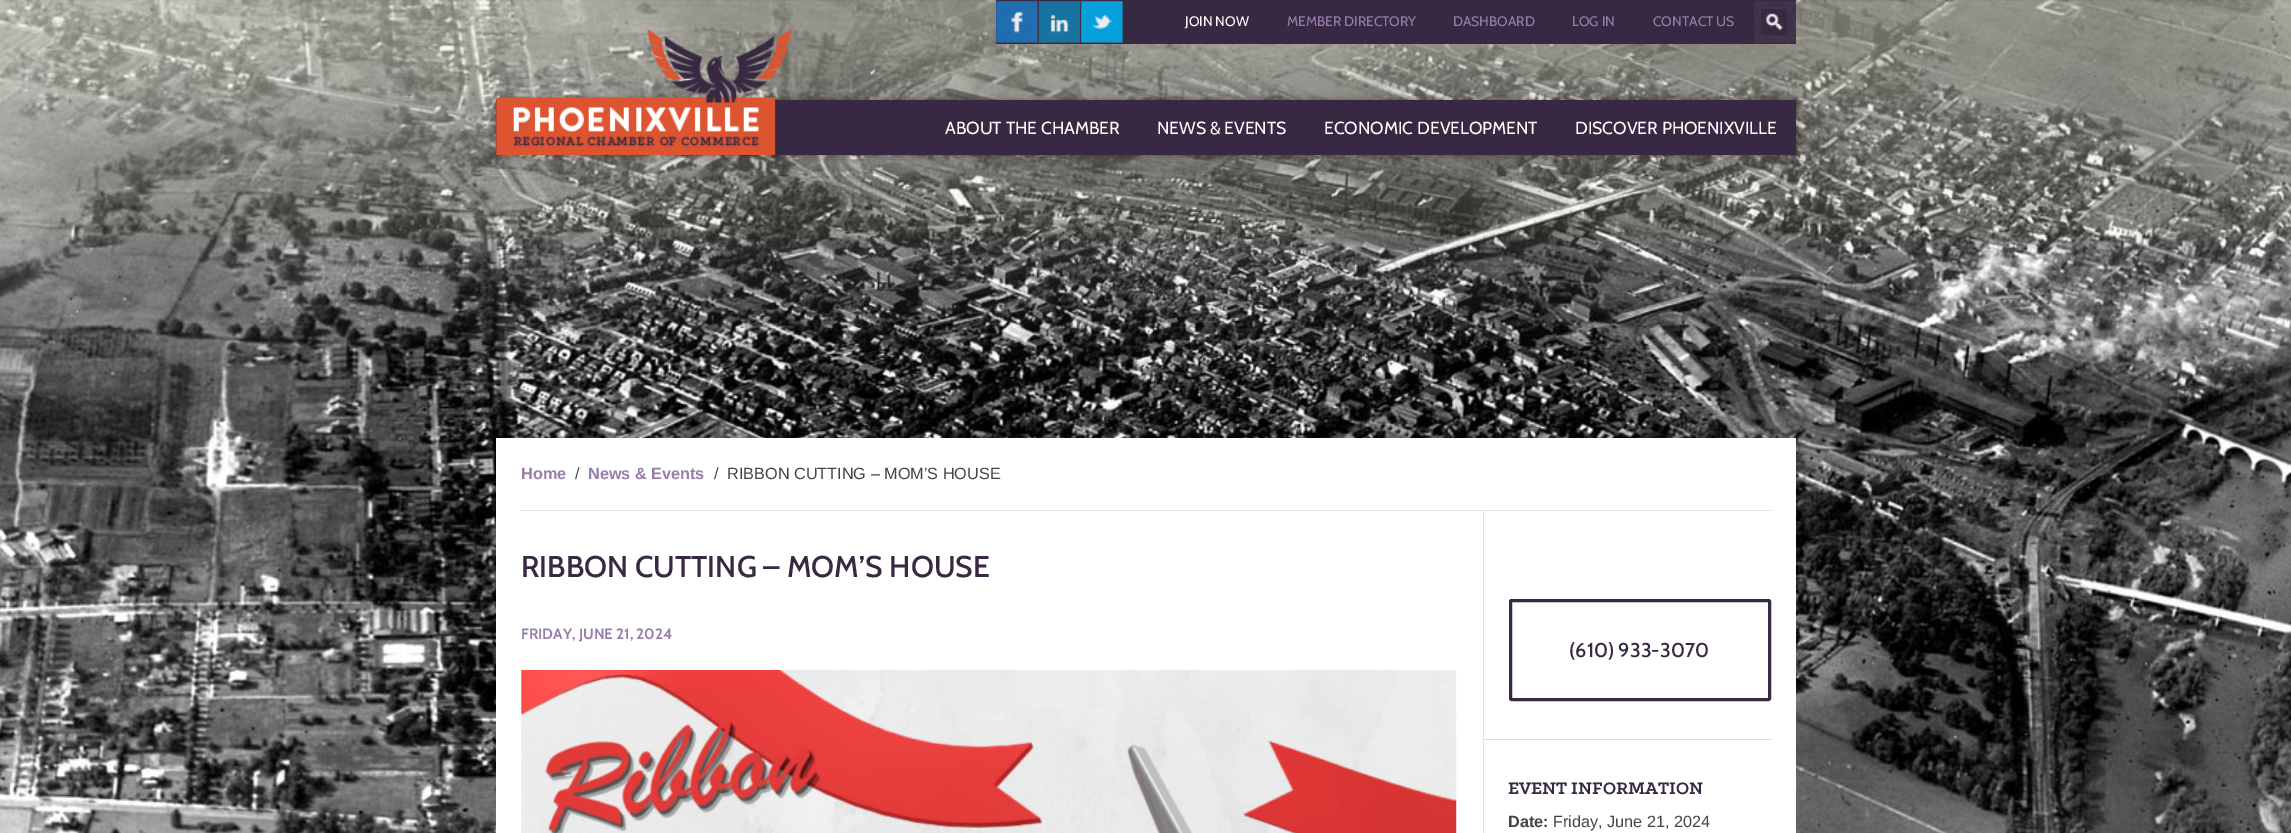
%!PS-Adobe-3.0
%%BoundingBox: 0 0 2291 833
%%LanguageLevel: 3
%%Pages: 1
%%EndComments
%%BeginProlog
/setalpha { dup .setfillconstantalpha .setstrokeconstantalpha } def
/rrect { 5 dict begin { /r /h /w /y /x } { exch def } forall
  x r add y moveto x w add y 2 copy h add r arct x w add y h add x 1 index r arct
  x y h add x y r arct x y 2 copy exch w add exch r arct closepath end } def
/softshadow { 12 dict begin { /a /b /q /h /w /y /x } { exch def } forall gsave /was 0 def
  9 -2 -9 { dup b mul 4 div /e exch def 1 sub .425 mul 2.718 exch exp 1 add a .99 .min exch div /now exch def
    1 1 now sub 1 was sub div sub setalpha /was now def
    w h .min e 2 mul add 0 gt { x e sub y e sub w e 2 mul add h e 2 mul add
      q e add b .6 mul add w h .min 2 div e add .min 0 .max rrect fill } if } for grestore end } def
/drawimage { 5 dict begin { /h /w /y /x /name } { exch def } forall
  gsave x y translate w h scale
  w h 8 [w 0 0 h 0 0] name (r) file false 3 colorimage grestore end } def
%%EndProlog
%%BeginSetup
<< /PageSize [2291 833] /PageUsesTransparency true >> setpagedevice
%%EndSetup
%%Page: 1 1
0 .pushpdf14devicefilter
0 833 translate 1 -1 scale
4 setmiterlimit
1 setgray
0 0 2291 833 rectfill
(images/6.raw) 0 0 2291 833 drawimage
0.9 setalpha
0.22 0.161 0.259 setrgbcolor
1039 0 42 43 rectfill
1 setalpha
(images/2.raw) 1038 1 42 42 drawimage
0.9 setalpha
996 1 43 43 rectfill
1 setalpha
(images/1.raw) 996 1 42 42 drawimage
0.224 0.165 0.263 setrgbcolor
996 0 43 1 rectfill
0.9 setalpha
0.22 0.161 0.259 setrgbcolor
996 43 43 1 rectfill
1039 0 42 1 rectfill
1081 0 42 43 rectfill
1 setalpha
(images/3.raw) 1081 1 42 42 drawimage
0.9 setalpha
1081 0 42 1 rectfill
1 setalpha
0.224 0.165 0.263 setrgbcolor
1039 43 84 1 rectfill
0.22 0.161 0.259 setrgbcolor
1123 0 631 44 rectfill
0.9 setalpha
1754 0 42 43 rectfill
1 setalpha
(images/4.raw) 1761 9 27 26 drawimage
0.9 setalpha
1754 0 42 1 rectfill
1 setalpha
0.224 0.165 0.263 setrgbcolor
1754 43 42 1 rectfill
0 setgray
496 100 1300 55 0 4 0.4 softshadow
0.22 0.161 0.259 setrgbcolor
496 100 1300 55 rectfill
(images/5.raw) 496 28 296 127 drawimage
1 setgray
496 438 1300 395 rectfill
0.89 setgray
521 510 1250 1 rectfill
1483 511 1 322 rectfill
(images/7.raw) 521 670 936 163 drawimage
0.871 setgray
1484 739 287 1 rectfill
0.22 0.161 0.259 setrgbcolor
3 setlinewidth
1510.5 600.5 259 99 1 rrect stroke
/Cabin-Regular [13.75 0 0 -13.75 0 0] selectfont
1 setgray
1185 26 moveto (JOIN NOW) show
0.596 0.49 0.667 setrgbcolor
1287 26 moveto (MEMBER DIRECTORY) show
1453 26 moveto (DASHBOARD) show
1572 26 moveto (LOG IN) show
1653 26 moveto (CONTACT US) show
/Cabin-Regular [17.5 0 0 -17.5 0 0] selectfont
1 setgray
945 134 moveto (ABOUT THE CHAMBER) show
1157 134 moveto (NEWS & EVENTS) show
1324 134 moveto (ECONOMIC DEVELOPMENT) show
1575 134 moveto (DISCOVER PHOENIXVILLE) show
/LiberationSans-Bold [16.25 0 0 -16.25 0 0] selectfont
0.596 0.49 0.667 setrgbcolor
521 479 moveto (Home) show
/LiberationSans-Regular [16.25 0 0 -16.25 0 0] selectfont
0.267 setgray
575 479 moveto (/) show
/LiberationSans-Bold [16.25 0 0 -16.25 0 0] selectfont
0.596 0.49 0.667 setrgbcolor
588 479 moveto (News & Events) show
/LiberationSans-Regular [16.25 0 0 -16.25 0 0] selectfont
0.267 setgray
714 479 moveto (/) show
727 479 moveto (RIBBON CUTTING – MOM’S HOUSE) show
/Cabin-Medium [30 0 0 -30 0 0] selectfont
0.22 0.161 0.259 setrgbcolor
521 577 moveto (RIBBON CUTTING – MOM’S HOUSE) show
/Cabin-Bold [15 0 0 -15 0 0] selectfont
0.596 0.49 0.667 setrgbcolor
521 639 moveto (FRIDAY, JUNE 21, 2024) show
/Cabin-Medium [20 0 0 -20 0 0] selectfont
0.22 0.161 0.259 setrgbcolor
1569 657 moveto (\(610\) 933-3070) show
/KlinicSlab-Bold [18.75 0 0 -18.75 0 0] selectfont
1508 794 moveto (EVENT INFORMATION) show
/LiberationSans-Bold [16.25 0 0 -16.25 0 0] selectfont
0.267 setgray
1508 827 moveto (Date:) show
/LiberationSans-Regular [16.25 0 0 -16.25 0 0] selectfont
1553 827 moveto (Friday, June 21, 2024) show
.poppdf14devicefilter showpage
%%EOF
